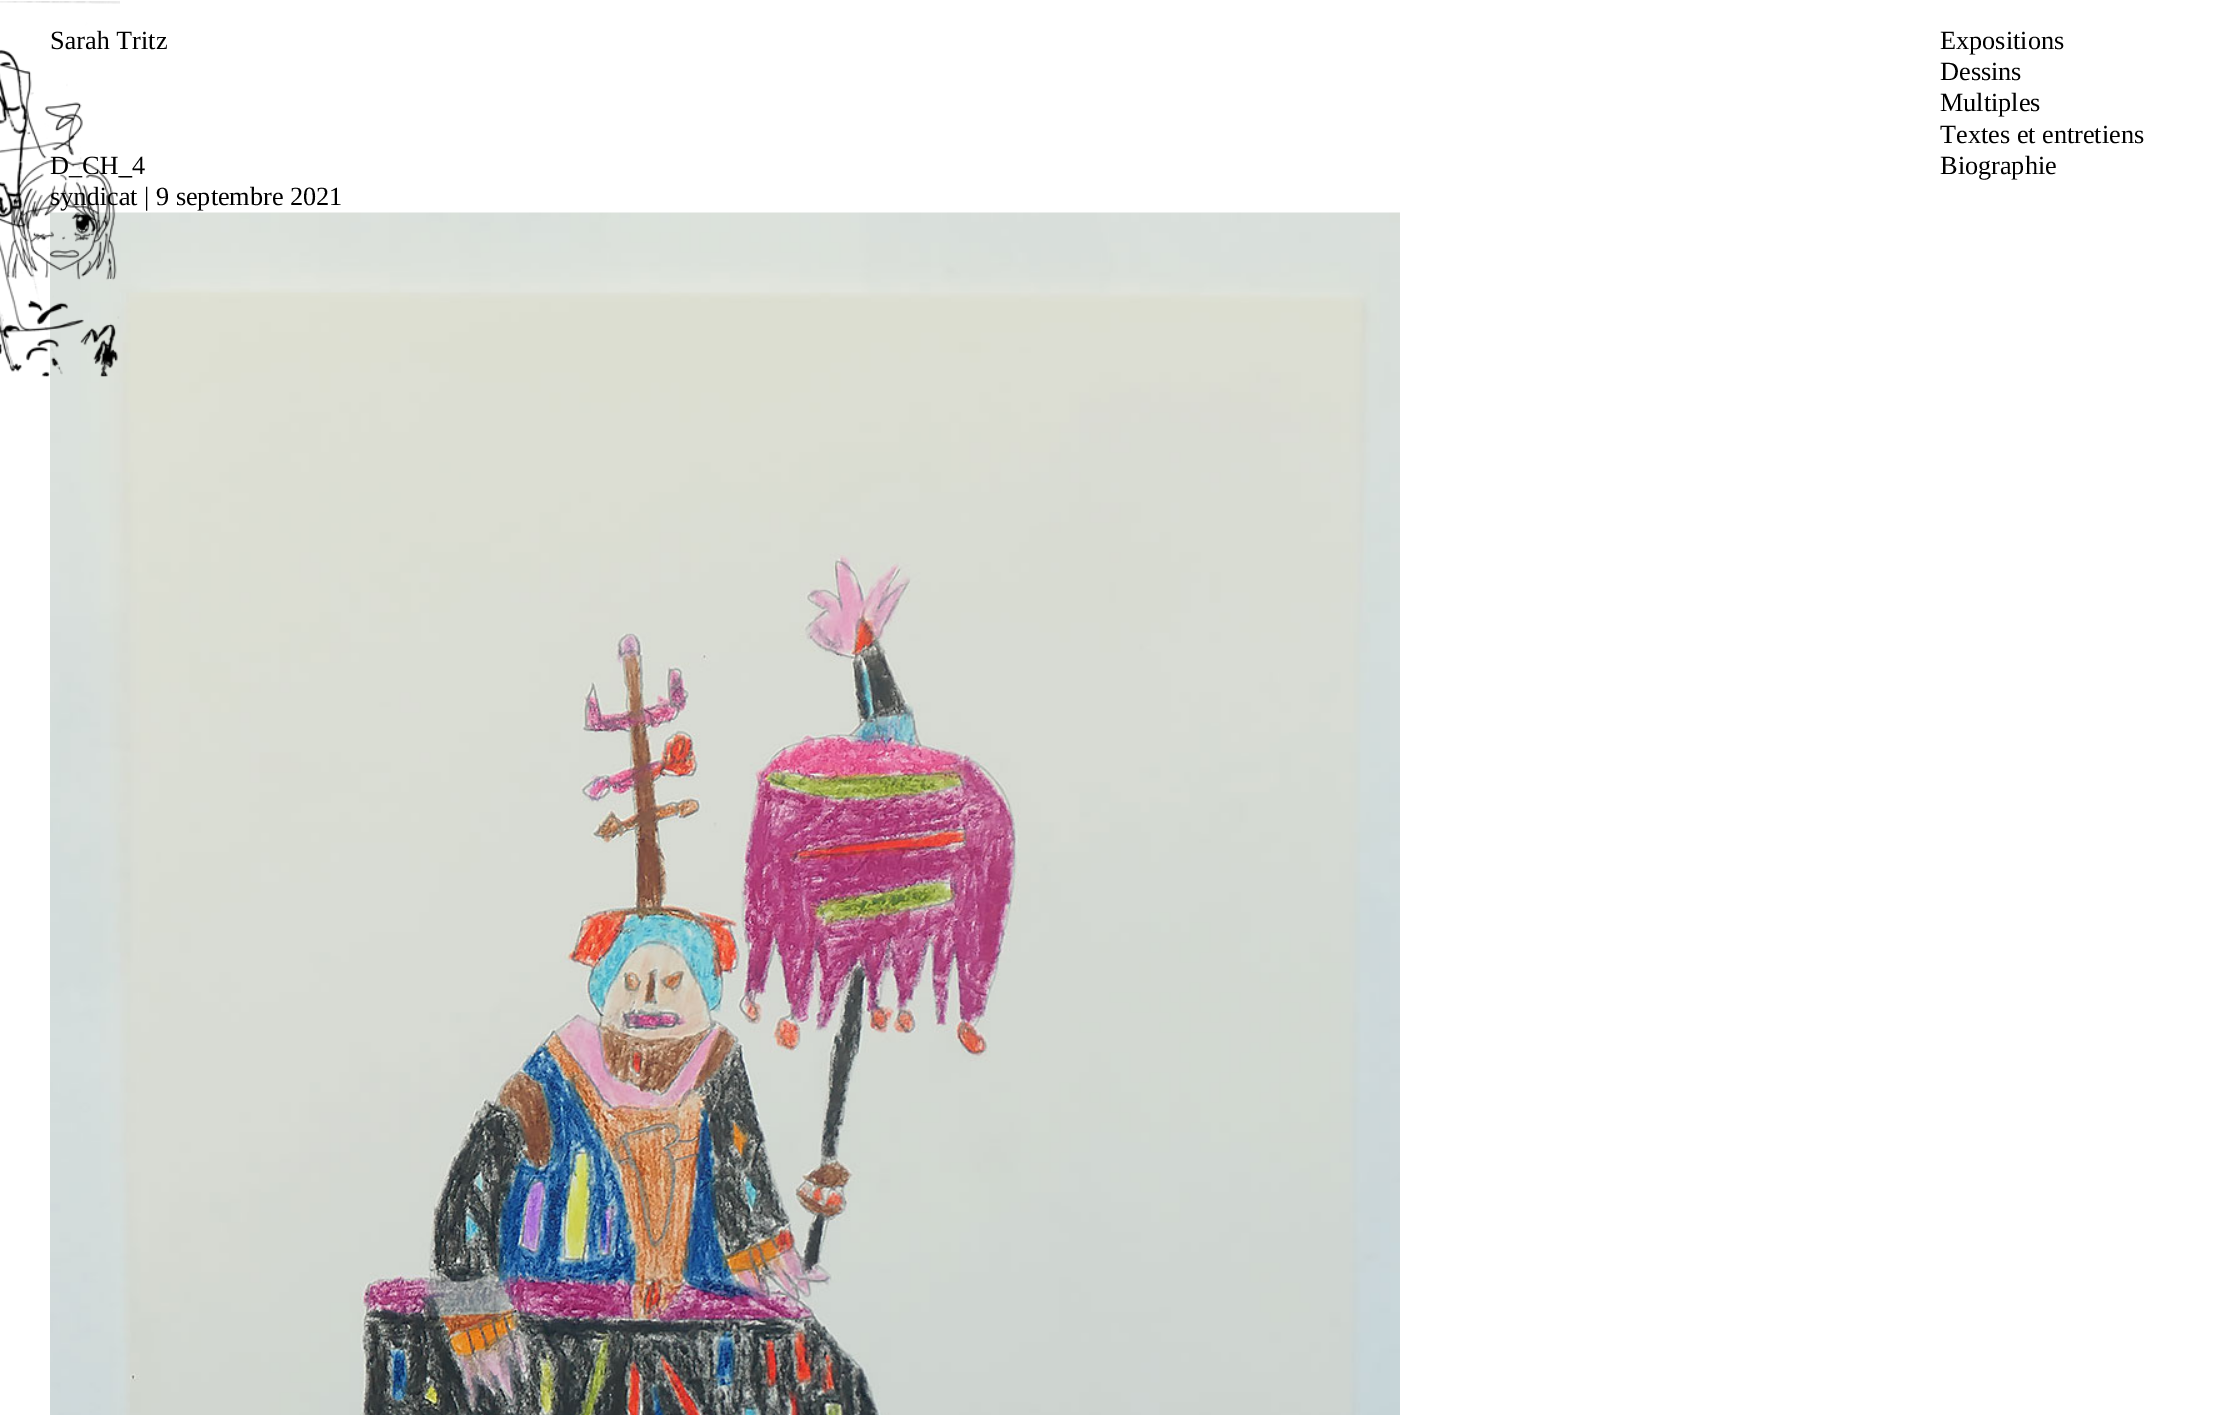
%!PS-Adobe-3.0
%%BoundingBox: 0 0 2240 1415
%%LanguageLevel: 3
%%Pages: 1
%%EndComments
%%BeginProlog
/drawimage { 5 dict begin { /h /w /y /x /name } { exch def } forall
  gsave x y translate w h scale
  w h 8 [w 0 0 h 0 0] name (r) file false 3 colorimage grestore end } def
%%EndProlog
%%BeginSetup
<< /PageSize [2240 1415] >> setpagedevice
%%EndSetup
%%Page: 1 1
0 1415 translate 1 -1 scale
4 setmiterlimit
1 setgray
0 0 2240 1415 rectfill
(images/2.raw) 50 212 1350 1203 drawimage
/LiberationSerif-Regular [26.25 0 0 -26.25 0 0] selectfont
0 setgray
50 49 moveto (Sarah Tritz) show
1940 49 moveto (Expositions) show
1940 80 moveto (Dessins) show
1940 111 moveto (Multiples) show
1940 143 moveto (Textes et entretiens) show
1940 174 moveto (Biographie) show
50 174 moveto (D_CH_4) show
50 205 moveto (syndicat | 9 septembre 2021) show
(images/1.raw) 0 1 120 376 drawimage
showpage
%%EOF
